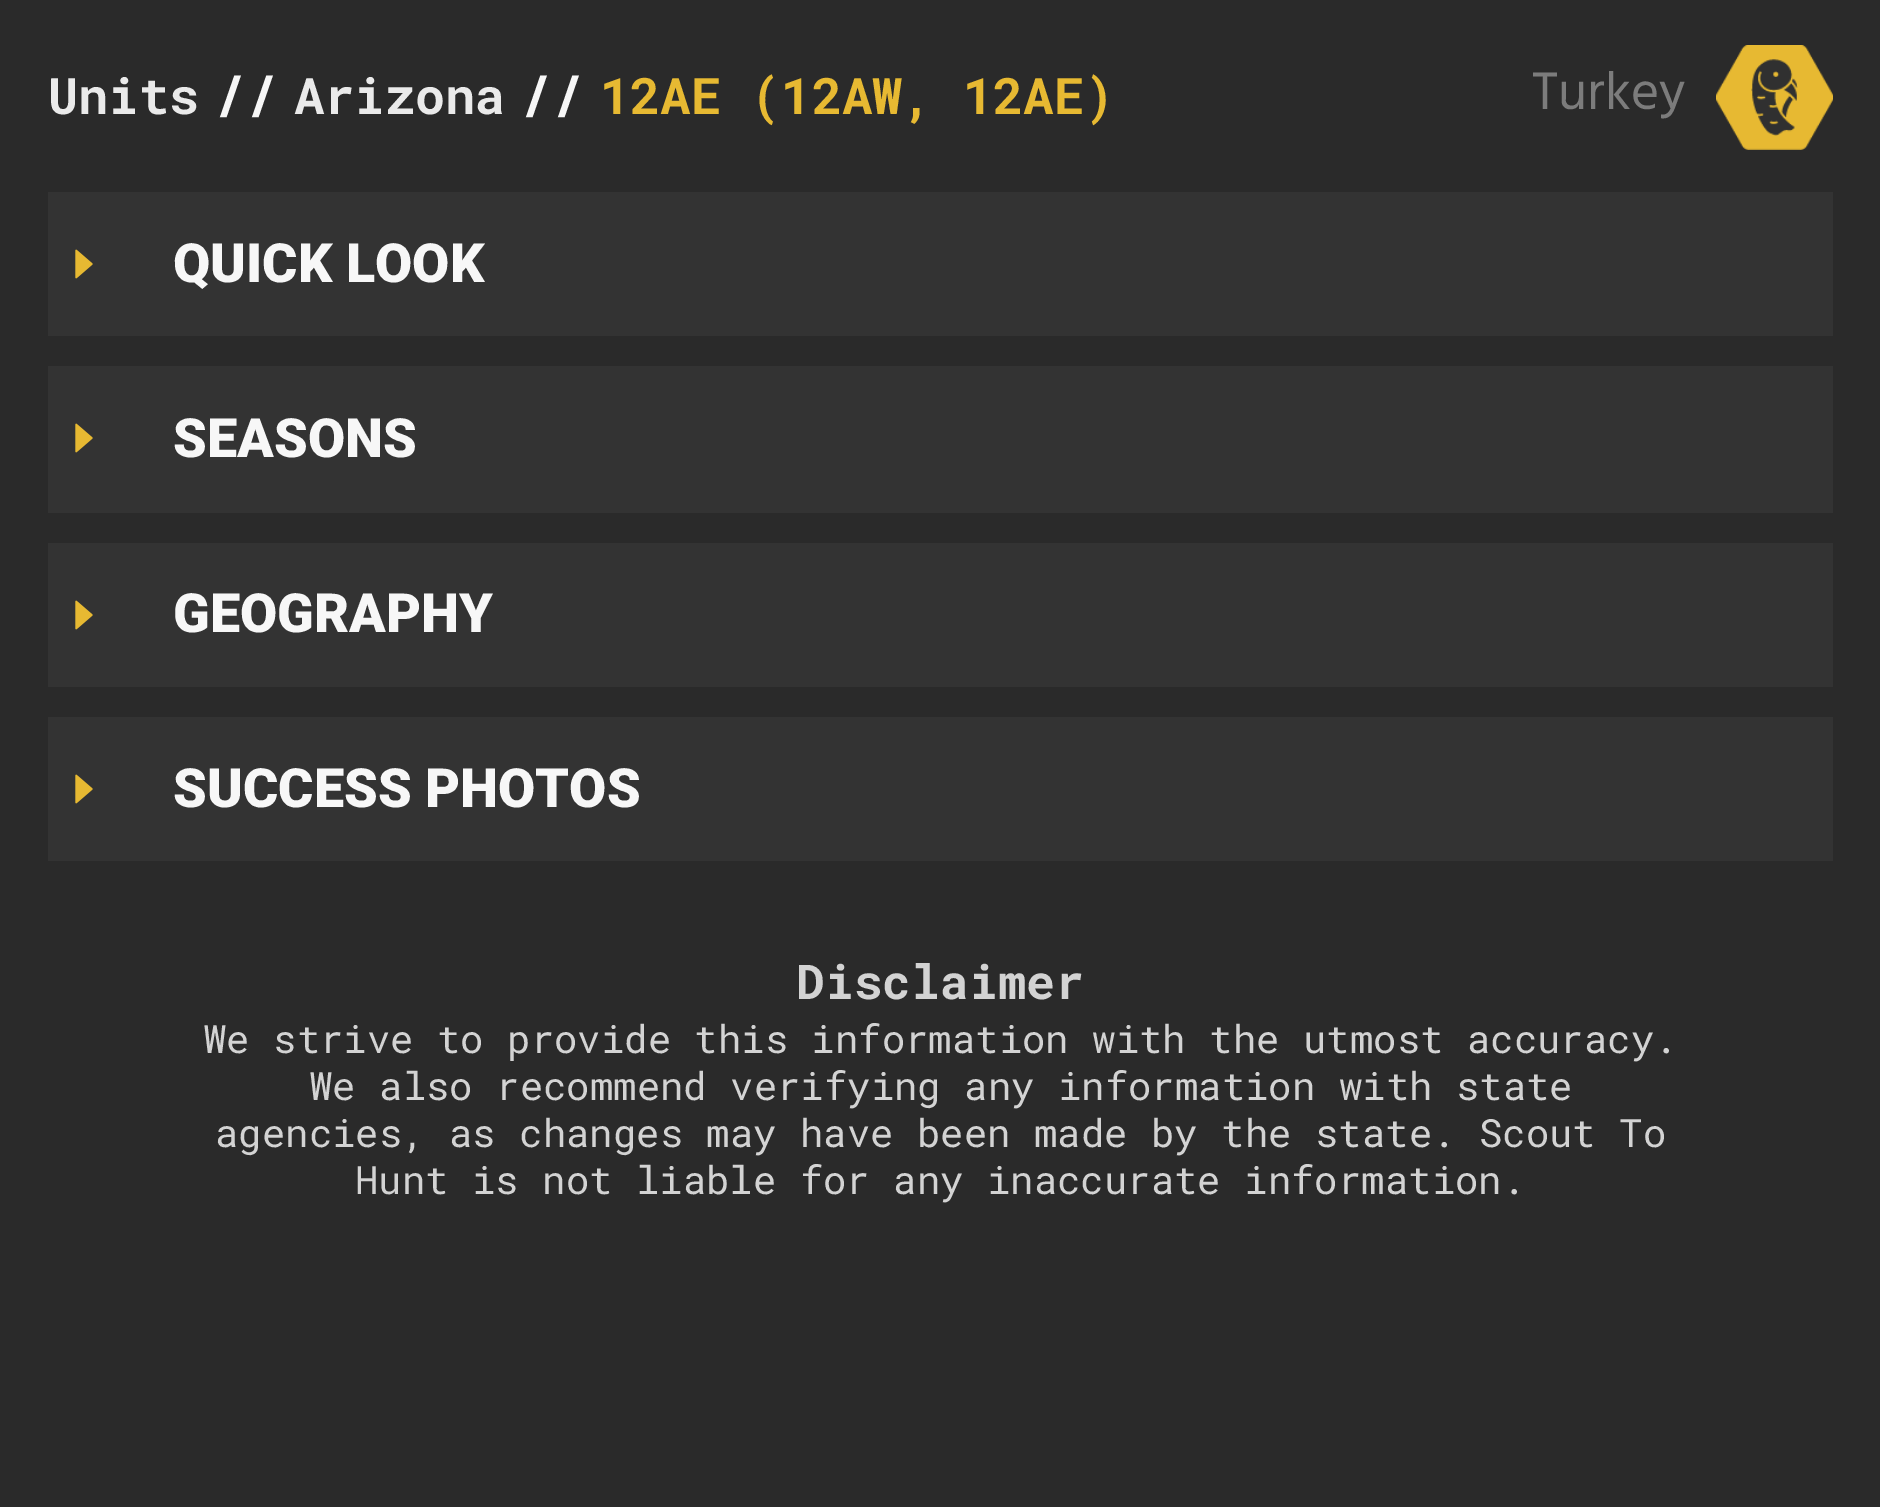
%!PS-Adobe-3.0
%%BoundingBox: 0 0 1880 1507
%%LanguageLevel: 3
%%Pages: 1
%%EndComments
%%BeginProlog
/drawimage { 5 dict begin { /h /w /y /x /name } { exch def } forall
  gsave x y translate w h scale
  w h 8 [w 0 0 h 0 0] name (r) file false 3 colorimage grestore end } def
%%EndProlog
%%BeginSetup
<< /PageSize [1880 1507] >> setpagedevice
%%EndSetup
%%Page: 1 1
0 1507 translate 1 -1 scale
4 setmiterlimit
0.165 setgray
0 0 1880 1507 rectfill
(images/1.raw) 1716 45 117 105 drawimage
0.2 setgray
48 192 1785 144 rectfill
(images/2.raw) 75 249 18 30 drawimage
48 366 1785 147 rectfill
(images/2.raw) 75 423 18 30 drawimage
48 543 1785 144 rectfill
(images/2.raw) 75 600 18 30 drawimage
48 717 1785 144 rectfill
(images/2.raw) 75 774 18 30 drawimage
/RobotoMono-Bold [50.4 0 0 -50.4 0 0] selectfont
0.918 setgray
48 114 moveto (Units) show
/RobotoMono-Bold [54 0 0 -54 0 0] selectfont
0.969 setgray
214 114 moveto (//) show
/RobotoMono-Bold [50.4 0 0 -50.4 0 0] selectfont
0.918 setgray
294 114 moveto (Arizona) show
/RobotoMono-Bold [54 0 0 -54 0 0] selectfont
0.969 setgray
520 114 moveto (//) show
/RobotoMono-Bold [50.4 0 0 -50.4 0 0] selectfont
0.906 0.725 0.196 setrgbcolor
600 114 moveto (12AE \(12AW, 12AE\)) show
/Hind-Regular [54 0 0 -54 0 0] selectfont
0.486 setgray
1532 109 moveto (Turkey) show
/Roboto-Black [54 0 0 -54 0 0] selectfont
0.969 setgray
173 282 moveto (QUICK LOOK) show
173 457 moveto (SEASONS) show
173 632 moveto (GEOGRAPHY) show
173 807 moveto (SUCCESS PHOTOS) show
/RobotoMono-Bold [48 0 0 -48 0 0] selectfont
0.827 setgray
796 999 moveto (Disclaimer) show
/RobotoMono-Regular [39 0 0 -39 0 0] selectfont
203 1053 moveto (We strive to provide this information with the utmost accuracy.) show
309 1100 moveto (We also recommend verifying any information with state) show
215 1147 moveto (agencies, as changes may have been made by the state. Scout To) show
355 1194 moveto (Hunt is not liable for any inaccurate information.) show
showpage
%%EOF
